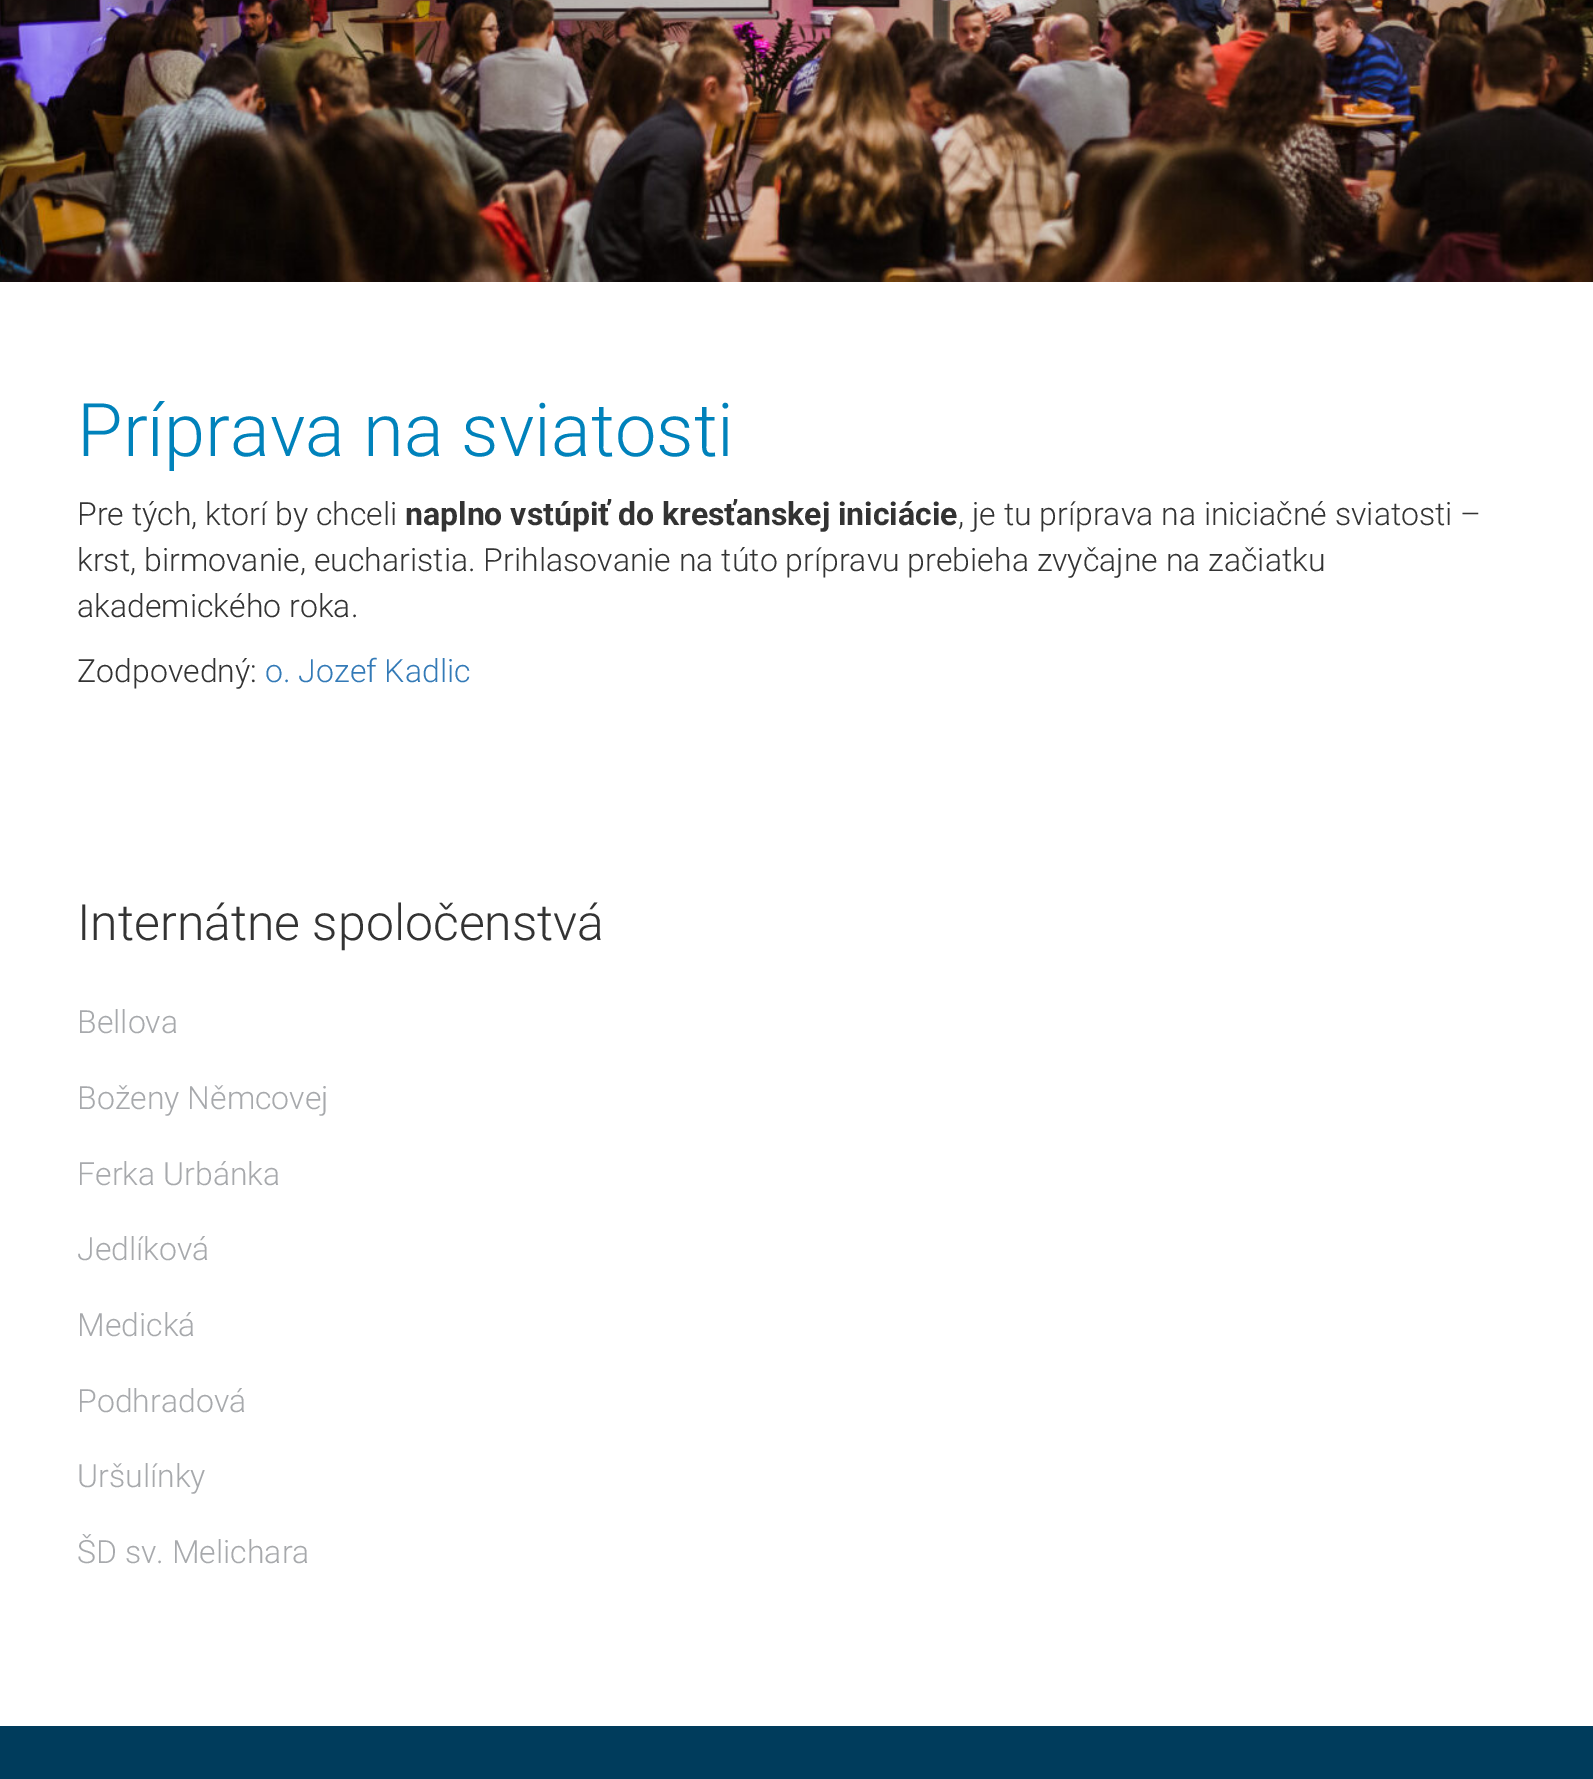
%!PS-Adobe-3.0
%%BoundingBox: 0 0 1593 1779
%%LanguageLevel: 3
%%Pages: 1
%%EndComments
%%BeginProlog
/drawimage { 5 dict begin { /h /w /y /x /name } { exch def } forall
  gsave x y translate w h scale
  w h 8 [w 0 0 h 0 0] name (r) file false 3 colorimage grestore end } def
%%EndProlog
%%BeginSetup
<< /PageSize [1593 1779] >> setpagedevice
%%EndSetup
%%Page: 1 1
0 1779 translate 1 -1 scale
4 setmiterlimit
1 setgray
0 0 1593 1779 rectfill
(images/1.raw) 0 0 1593 282 drawimage
0 0.235 0.361 setrgbcolor
0 1726 1593 53 rectfill
/Roboto-Light [74 0 0 -74 0 0] selectfont
0 0.51 0.733 setrgbcolor
77 456 moveto (Príprava na sviatosti) show
/Roboto-Light [32 0 0 -32 0 0] selectfont
0.2 setgray
77 525 moveto (Pre tých, ktorí by chceli) show
/Roboto-Bold [32 0 0 -32 0 0] selectfont
405 525 moveto (naplno vstúpiť do kresťanskej iniciácie) show
/Roboto-Light [32 0 0 -32 0 0] selectfont
958 525 moveto (, je tu príprava na iniciačné sviatosti –) show
77 571 moveto (krst, birmovanie, eucharistia. Prihlasovanie na túto prípravu prebieha zvyčajne na začiatku) show
77 617 moveto (akademického roka.) show
77 682 moveto (Zodpovedný:) show
0.2 0.478 0.718 setrgbcolor
265 682 moveto (o. Jozef Kadlic) show
/Roboto-Light [50 0 0 -50 0 0] selectfont
0.2 setgray
77 940 moveto (Internátne spoločenstvá) show
/Roboto-Light [32 0 0 -32 0 0] selectfont
0.655 0.663 0.675 setrgbcolor
77 1033 moveto (Bellova) show
77 1109 moveto (Boženy Němcovej) show
77 1185 moveto (Ferka Urbánka) show
77 1260 moveto (Jedlíková) show
77 1336 moveto (Medická) show
77 1412 moveto (Podhradová) show
77 1487 moveto (Uršulínky) show
77 1563 moveto (ŠD sv. Melichara) show
showpage
%%EOF
